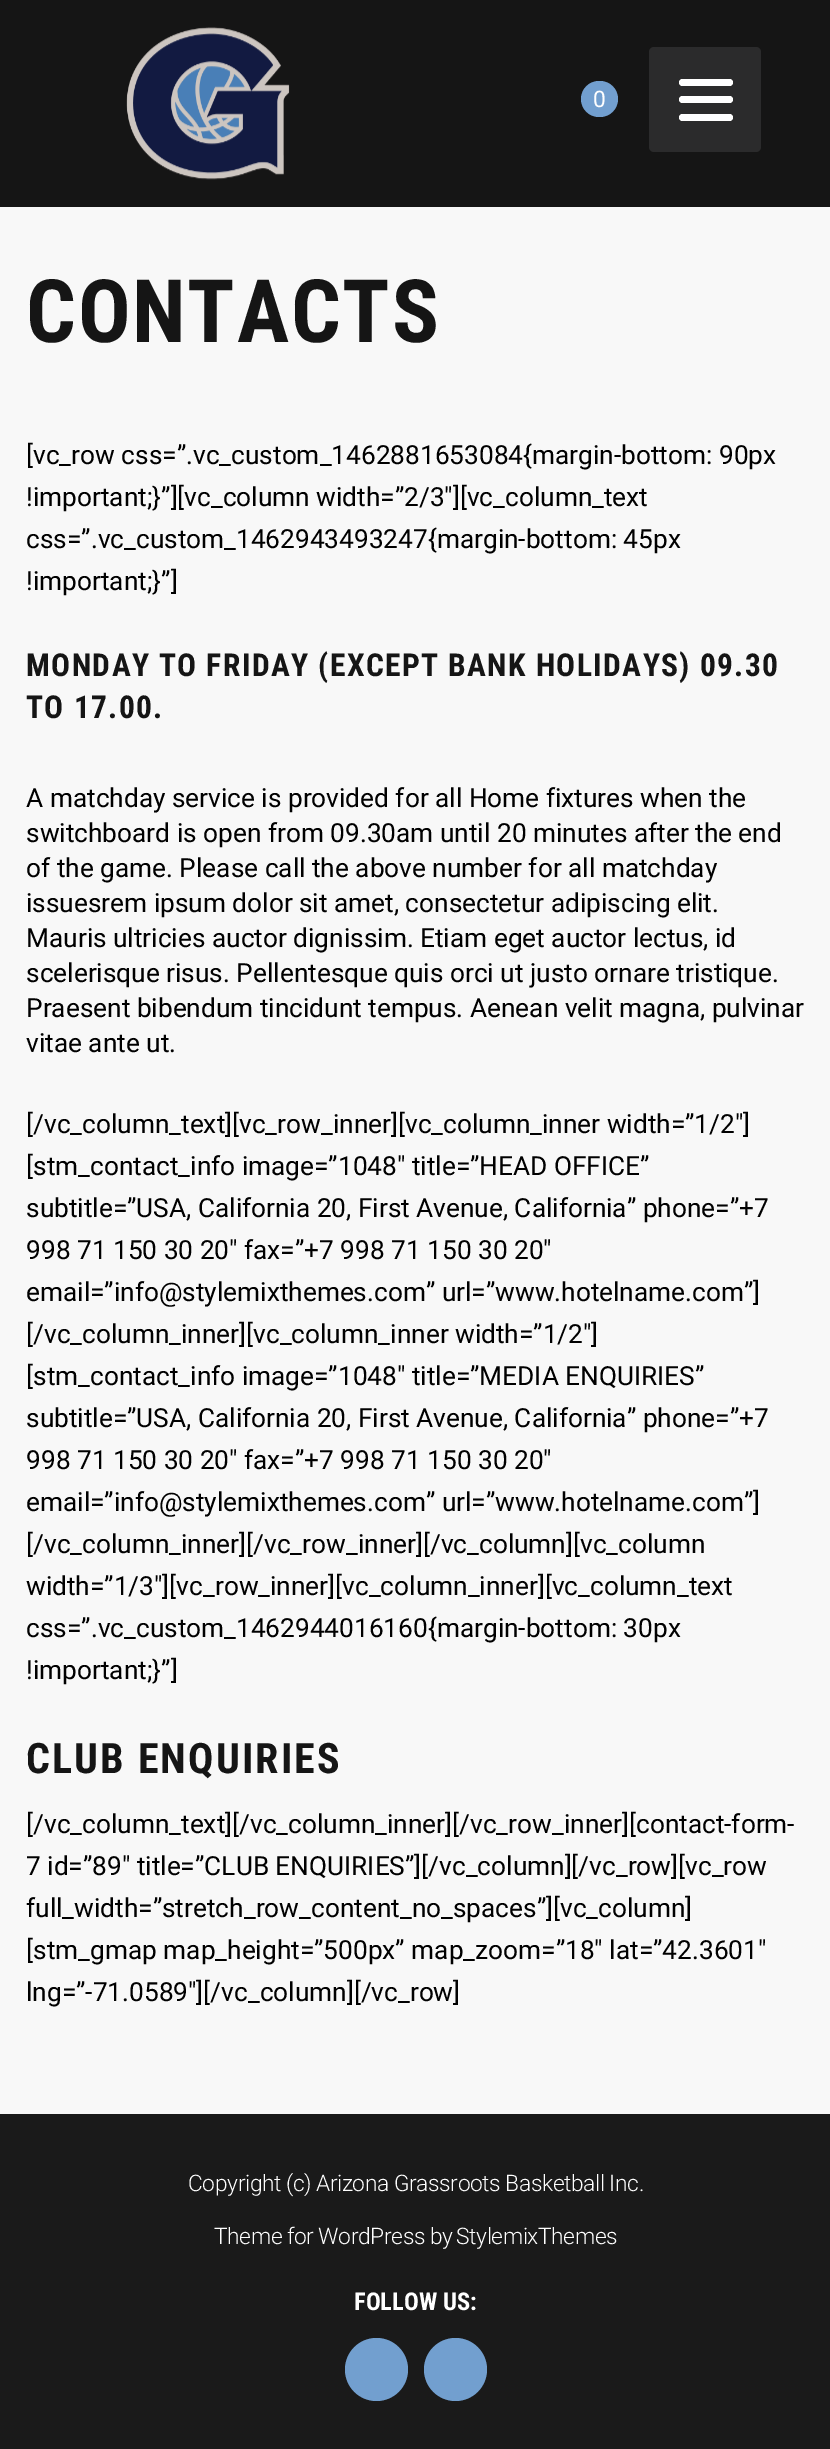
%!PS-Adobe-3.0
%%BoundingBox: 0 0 830 2449
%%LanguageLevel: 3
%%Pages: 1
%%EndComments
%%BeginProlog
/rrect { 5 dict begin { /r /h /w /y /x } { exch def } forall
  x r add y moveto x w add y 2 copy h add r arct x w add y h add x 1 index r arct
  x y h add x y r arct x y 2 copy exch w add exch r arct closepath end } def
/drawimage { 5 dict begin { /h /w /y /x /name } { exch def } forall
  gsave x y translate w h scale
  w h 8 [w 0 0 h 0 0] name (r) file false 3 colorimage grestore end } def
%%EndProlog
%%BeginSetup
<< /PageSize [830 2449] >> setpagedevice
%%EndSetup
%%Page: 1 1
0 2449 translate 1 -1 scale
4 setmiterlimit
0.102 setgray
0 0 830 2449 rectfill
0.973 setgray
0 207 830 1907 rectfill
0.082 setgray
0 0 830 207 rectfill
(images/1.raw) 126 27 164 153 drawimage
0.447 0.624 0.812 setrgbcolor
581 81 37 36 18 rrect fill
0.169 0.169 0.173 setrgbcolor
649 47 112 105 5 rrect fill
1 setgray
679 79 54 7 3.5 rrect fill
679 96 54 7 3.5 rrect fill
679 114 54 7 3.5 rrect fill
0.447 0.624 0.812 setrgbcolor
newpath 376.5 2369.5 31.5 0 360 arc closepath fill
newpath 455.5 2369.5 31.5 0 360 arc closepath fill
/Roboto-Regular [22.75 0 0 -22.75 0 0] selectfont
1 setgray
593 107 moveto (0) show
/RobotoCondensed-Bold [87.5 0 0 -87.5 0 0] selectfont
0.082 setgray
26 342 moveto 1.75 0 (CONTACTS) ashow
/Roboto-Regular [26.25 0 0 -26.25 0 0] selectfont
0 setgray
26 464 moveto ([vc_row css=”.vc_custom_1462881653084{margin-bottom: 90px) show
26 506 moveto (!important;}”][vc_column width=”2/3″][vc_column_text) show
26 548 moveto (css=”.vc_custom_1462943493247{margin-bottom: 45px) show
26 590 moveto (!important;}”]) show
/RobotoCondensed-Bold [31.5 0 0 -31.5 0 0] selectfont
0.082 setgray
26 676 moveto 1.4 0 (MONDAY TO FRIDAY \(EXCEPT BANK HOLIDAYS\) 09.30) ashow
26 718 moveto 1.4 0 (TO 17.00.) ashow
/Roboto-Regular [26.25 0 0 -26.25 0 0] selectfont
0 setgray
26 807 moveto (A matchday service is provided for all Home fixtures when the) show
26 842 moveto (switchboard is open from 09.30am until 20 minutes after the end) show
26 877 moveto (of the game. Please call the above number for all matchday) show
26 912 moveto (issuesrem ipsum dolor sit amet, consectetur adipiscing elit.) show
26 947 moveto (Mauris ultricies auctor dignissim. Etiam eget auctor lectus, id) show
26 982 moveto (scelerisque risus. Pellentesque quis orci ut justo ornare tristique.) show
26 1017 moveto (Praesent bibendum tincidunt tempus. Aenean velit magna, pulvinar) show
26 1052 moveto (vitae ante ut.) show
26 1133 moveto ([/vc_column_text][vc_row_inner][vc_column_inner width=”1/2″]) show
26 1175 moveto ([stm_contact_info image=”1048″ title=”HEAD OFFICE”) show
26 1217 moveto (subtitle=”USA, California 20, First Avenue, California” phone=”+7) show
26 1259 moveto (998 71 150 30 20″ fax=”+7 998 71 150 30 20″) show
26 1301 moveto (email=”info@stylemixthemes.com” url=”www.hotelname.com”]) show
26 1343 moveto ([/vc_column_inner][vc_column_inner width=”1/2″]) show
26 1385 moveto ([stm_contact_info image=”1048″ title=”MEDIA ENQUIRIES”) show
26 1427 moveto (subtitle=”USA, California 20, First Avenue, California” phone=”+7) show
26 1469 moveto (998 71 150 30 20″ fax=”+7 998 71 150 30 20″) show
26 1511 moveto (email=”info@stylemixthemes.com” url=”www.hotelname.com”]) show
26 1553 moveto ([/vc_column_inner][/vc_row_inner][/vc_column][vc_column) show
26 1595 moveto (width=”1/3″][vc_row_inner][vc_column_inner][vc_column_text) show
26 1637 moveto (css=”.vc_custom_1462944016160{margin-bottom: 30px) show
26 1679 moveto (!important;}”]) show
/RobotoCondensed-Bold [42 0 0 -42 0 0] selectfont
0.082 setgray
26 1773 moveto 2.1 0 (CLUB ENQUIRIES) ashow
/Roboto-Regular [26.25 0 0 -26.25 0 0] selectfont
0 setgray
26 1833 moveto ([/vc_column_text][/vc_column_inner][/vc_row_inner][contact-form-) show
26 1875 moveto (7 id=”89″ title=”CLUB ENQUIRIES”][/vc_column][/vc_row][vc_row) show
26 1917 moveto (full_width=”stretch_row_content_no_spaces”][vc_column]) show
26 1959 moveto ([stm_gmap map_height=”500px” map_zoom=”18″ lat=”42.3601″) show
26 2001 moveto (lng=”-71.0589″][/vc_column][/vc_row]) show
/Roboto-Light [22.75 0 0 -22.75 0 0] selectfont
1 setgray
188 2191 moveto -0.5 0 32 -0.35 0 (Copyright \(c\) Arizona Grassroots Basketball Inc.) awidthshow
214 2244 moveto -0.5 0 32 -0.35 0 (Theme for WordPress by) awidthshow
456 2244 moveto -0.35 0 (StylemixThemes) ashow
/RobotoCondensed-Bold [24.5 0 0 -24.5 0 0] selectfont
354 2310 moveto (FOLLOW US:) show
showpage
%%EOF
